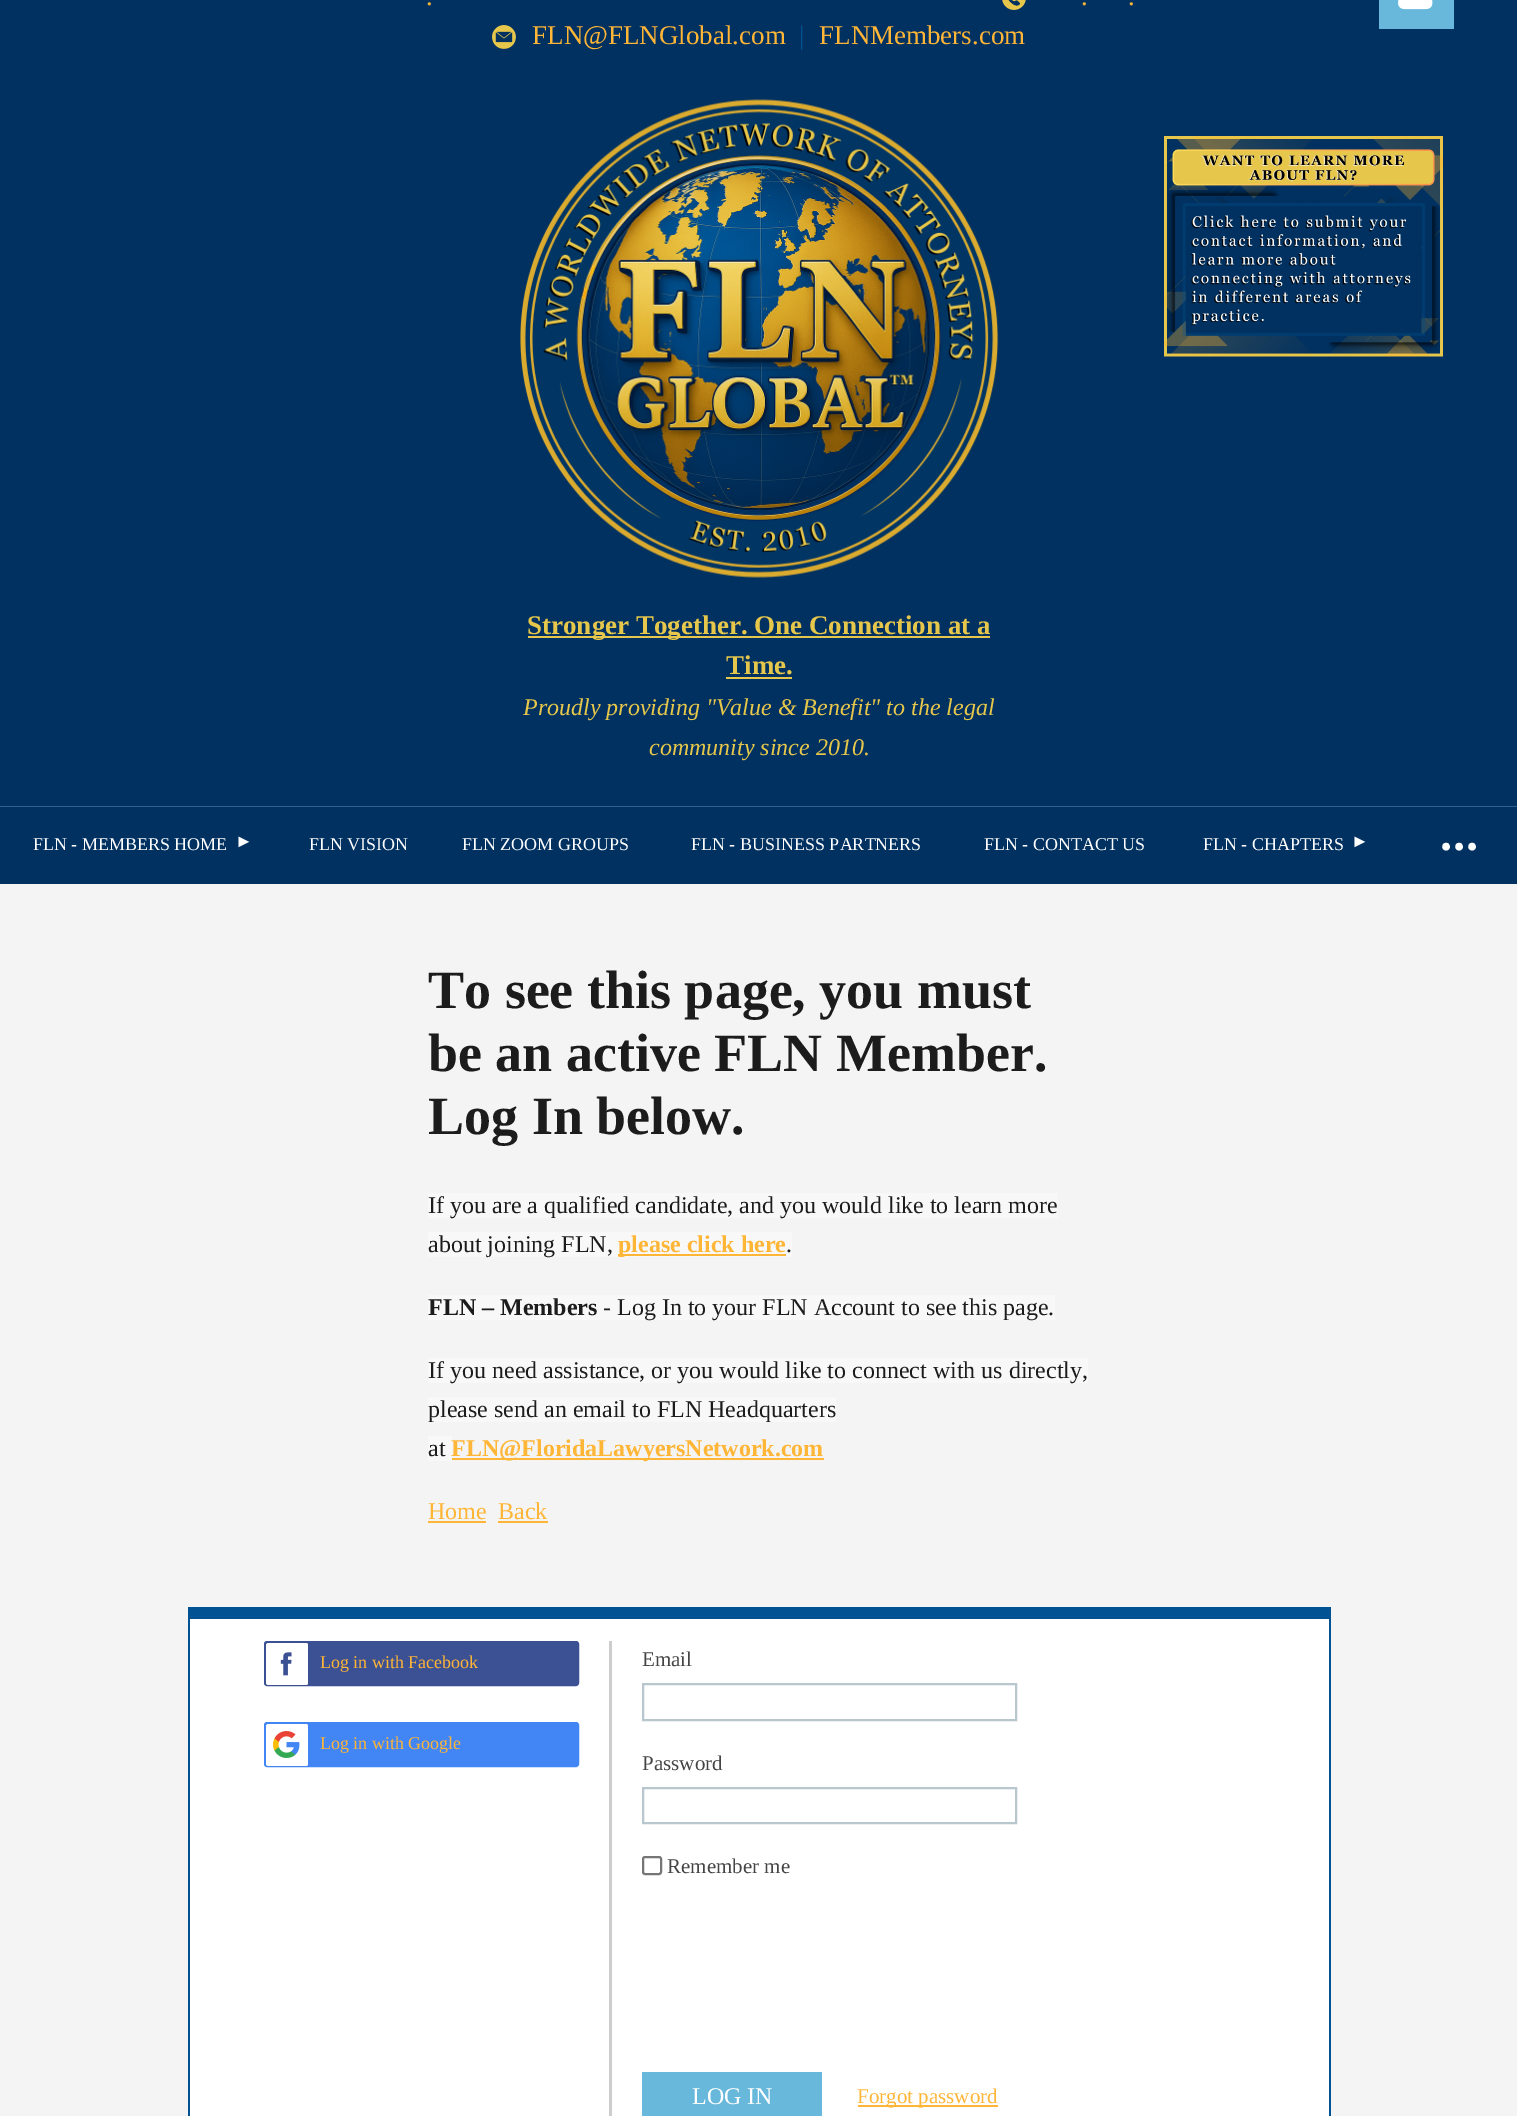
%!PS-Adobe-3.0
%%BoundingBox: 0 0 1517 2116
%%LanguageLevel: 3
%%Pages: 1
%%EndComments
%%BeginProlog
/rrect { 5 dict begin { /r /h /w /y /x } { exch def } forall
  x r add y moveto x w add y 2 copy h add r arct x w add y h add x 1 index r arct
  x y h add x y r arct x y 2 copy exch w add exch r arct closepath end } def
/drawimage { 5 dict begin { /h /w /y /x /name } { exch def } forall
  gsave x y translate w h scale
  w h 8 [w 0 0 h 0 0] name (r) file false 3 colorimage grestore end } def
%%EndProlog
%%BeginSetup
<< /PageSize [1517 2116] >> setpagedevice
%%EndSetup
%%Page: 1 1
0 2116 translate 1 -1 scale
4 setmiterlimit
0.957 setgray
0 0 1517 2116 rectfill
0.004 0.192 0.376 setrgbcolor
0 0 1517 806 rectfill
(images/1.raw) 1002 0 24 10 drawimage
(images/2.raw) 492 25 24 24 drawimage
0.404 0.722 0.859 setrgbcolor
1379 0 75 29 rectfill
(images/3.raw) 1398 0 35 10 drawimage
(images/4.raw) 1164 136 279 221 drawimage
(images/5.raw) 520 99 479 479 drawimage
0.906 0.78 0.294 setrgbcolor
528 636 462 2 rectfill
726 677 66 2 rectfill
0.184 0.373 0.545 setrgbcolor
0 806 1517 1 rectfill
0.004 0.192 0.376 setrgbcolor
0 807 1517 77 rectfill
0.973 setgray
428 1193 630 25 rectfill
428 1232 364 25 rectfill
1 0.71 0.212 setrgbcolor
618 1254 168 2 rectfill
0.973 setgray
428 1295 627 25 rectfill
428 1358 660 25 rectfill
428 1397 408 25 rectfill
428 1436 24 25 rectfill
1 0.71 0.212 setrgbcolor
452 1458 372 2 rectfill
428 1521 58 2 rectfill
498 1521 50 2 rectfill
1 setgray
190 1619 1139 497 rectfill
0.004 0.322 0.573 setrgbcolor
190 1607 1139 12 rectfill
1329 1607 2 509 rectfill
188 1607 2 509 rectfill
0.235 0.318 0.576 setrgbcolor
265 1642 313 43 2 rrect gsave fill grestore
2 setlinewidth
stroke
(images/6.raw) 266 1643 42 42 drawimage
0.259 0.522 0.957 setrgbcolor
265 1723 313 43 2 rrect gsave fill grestore
stroke
(images/7.raw) 266 1724 42 42 drawimage
0.804 setgray
609 1641 3 475 rectfill
0.722 0.776 0.804 setrgbcolor
643 1684 373 36 rectstroke
643 1788 373 35 rectstroke
0.463 setgray
643 1857 18 17 2 rrect stroke
0.404 0.722 0.859 setrgbcolor
642 2072 180 44 rectfill
1 0.71 0.212 setrgbcolor
858 2105 140 2 rectfill
/LiberationSerif-Regular [27 0 0 -27 0 0] selectfont
426 5 moveto (.) show
1081 5 moveto (.) show
1128 5 moveto (.) show
532 44 moveto (FLN@FLNGlobal.com) show
0.004 0.322 0.573 setrgbcolor
799 44 moveto (|) show
1 0.71 0.212 setrgbcolor
819 44 moveto (FLNMembers.com) show
/LiberationSerif-Bold [27 0 0 -27 0 0] selectfont
0.906 0.78 0.294 setrgbcolor
527 634 moveto (Stronger Together. One Connection at a) show
726 674 moveto (Time.) show
/LiberationSerif-Italic [24 0 0 -24 0 0] selectfont
523 715 moveto (Proudly providing "Value & Benefit" to the legal) show
649 755 moveto (community since 2010.) show
/LiberationSerif-Regular [18 0 0 -18 0 0] selectfont
1 setgray
33 850 moveto (FLN - MEMBERS HOME) show
/LiberationSans-Regular [18 0 0 -18 0 0] selectfont
235 847 moveto (►) show
/LiberationSerif-Regular [18 0 0 -18 0 0] selectfont
309 850 moveto (FLN VISION) show
462 850 moveto (FLN ZOOM GROUPS) show
691 850 moveto (FLN - BUSINESS PARTNERS) show
984 850 moveto (FLN - CONTACT US) show
1203 850 moveto (FLN - CHAPTERS) show
/LiberationSans-Regular [18 0 0 -18 0 0] selectfont
1351 847 moveto (►) show
/Ubuntu-Regular [66 0 0 -66 0 0] selectfont
1438 866 moveto -3 0 (···) ashow
/LiberationSerif-Bold [54 0 0 -54 0 0] selectfont
0.114 0.11 0.114 setrgbcolor
428 1008 moveto (To see this page, you must) show
428 1071 moveto (be an active FLN Member.) show
428 1134 moveto (Log In below.) show
/LiberationSerif-Regular [24 0 0 -24 0 0] selectfont
428 1213 moveto (If you are a qualified candidate, and you would like to learn more) show
428 1252 moveto (about joining FLN,) show
/LiberationSerif-Bold [24 0 0 -24 0 0] selectfont
1 0.71 0.212 setrgbcolor
618 1252 moveto (please click here) show
/LiberationSerif-Regular [24 0 0 -24 0 0] selectfont
0.114 0.11 0.114 setrgbcolor
786 1252 moveto (.) show
/LiberationSerif-Bold [24 0 0 -24 0 0] selectfont
428 1315 moveto (FLN – Members) show
/LiberationSerif-Regular [24 0 0 -24 0 0] selectfont
603 1315 moveto (- Log In to your FLN Account to see this page.) show
428 1378 moveto (If you need assistance, or you would like to connect with us directly,) show
428 1417 moveto (please send an email to FLN Headquarters) show
428 1456 moveto (at) show
/LiberationSerif-Bold [24 0 0 -24 0 0] selectfont
1 0.71 0.212 setrgbcolor
451 1456 moveto (FLN@FloridaLawyersNetwork.com) show
/LiberationSerif-Regular [24 0 0 -24 0 0] selectfont
428 1519 moveto (Home) show
498 1519 moveto (Back) show
/LiberationSerif-Regular [18 0 0 -18 0 0] selectfont
320 1668 moveto (Log in with Facebook) show
320 1749 moveto (Log in with Google) show
/LiberationSerif-Regular [21 0 0 -21 0 0] selectfont
0.267 setgray
642 1666 moveto (Email) show
642 1770 moveto (Password) show
667 1873 moveto (Remember me) show
/LiberationSerif-Regular [24 0 0 -24 0 0] selectfont
1 setgray
692 2104 moveto (LOG IN) show
/LiberationSerif-Regular [21 0 0 -21 0 0] selectfont
1 0.71 0.212 setrgbcolor
857 2103 moveto (Forgot password) show
showpage
%%EOF
